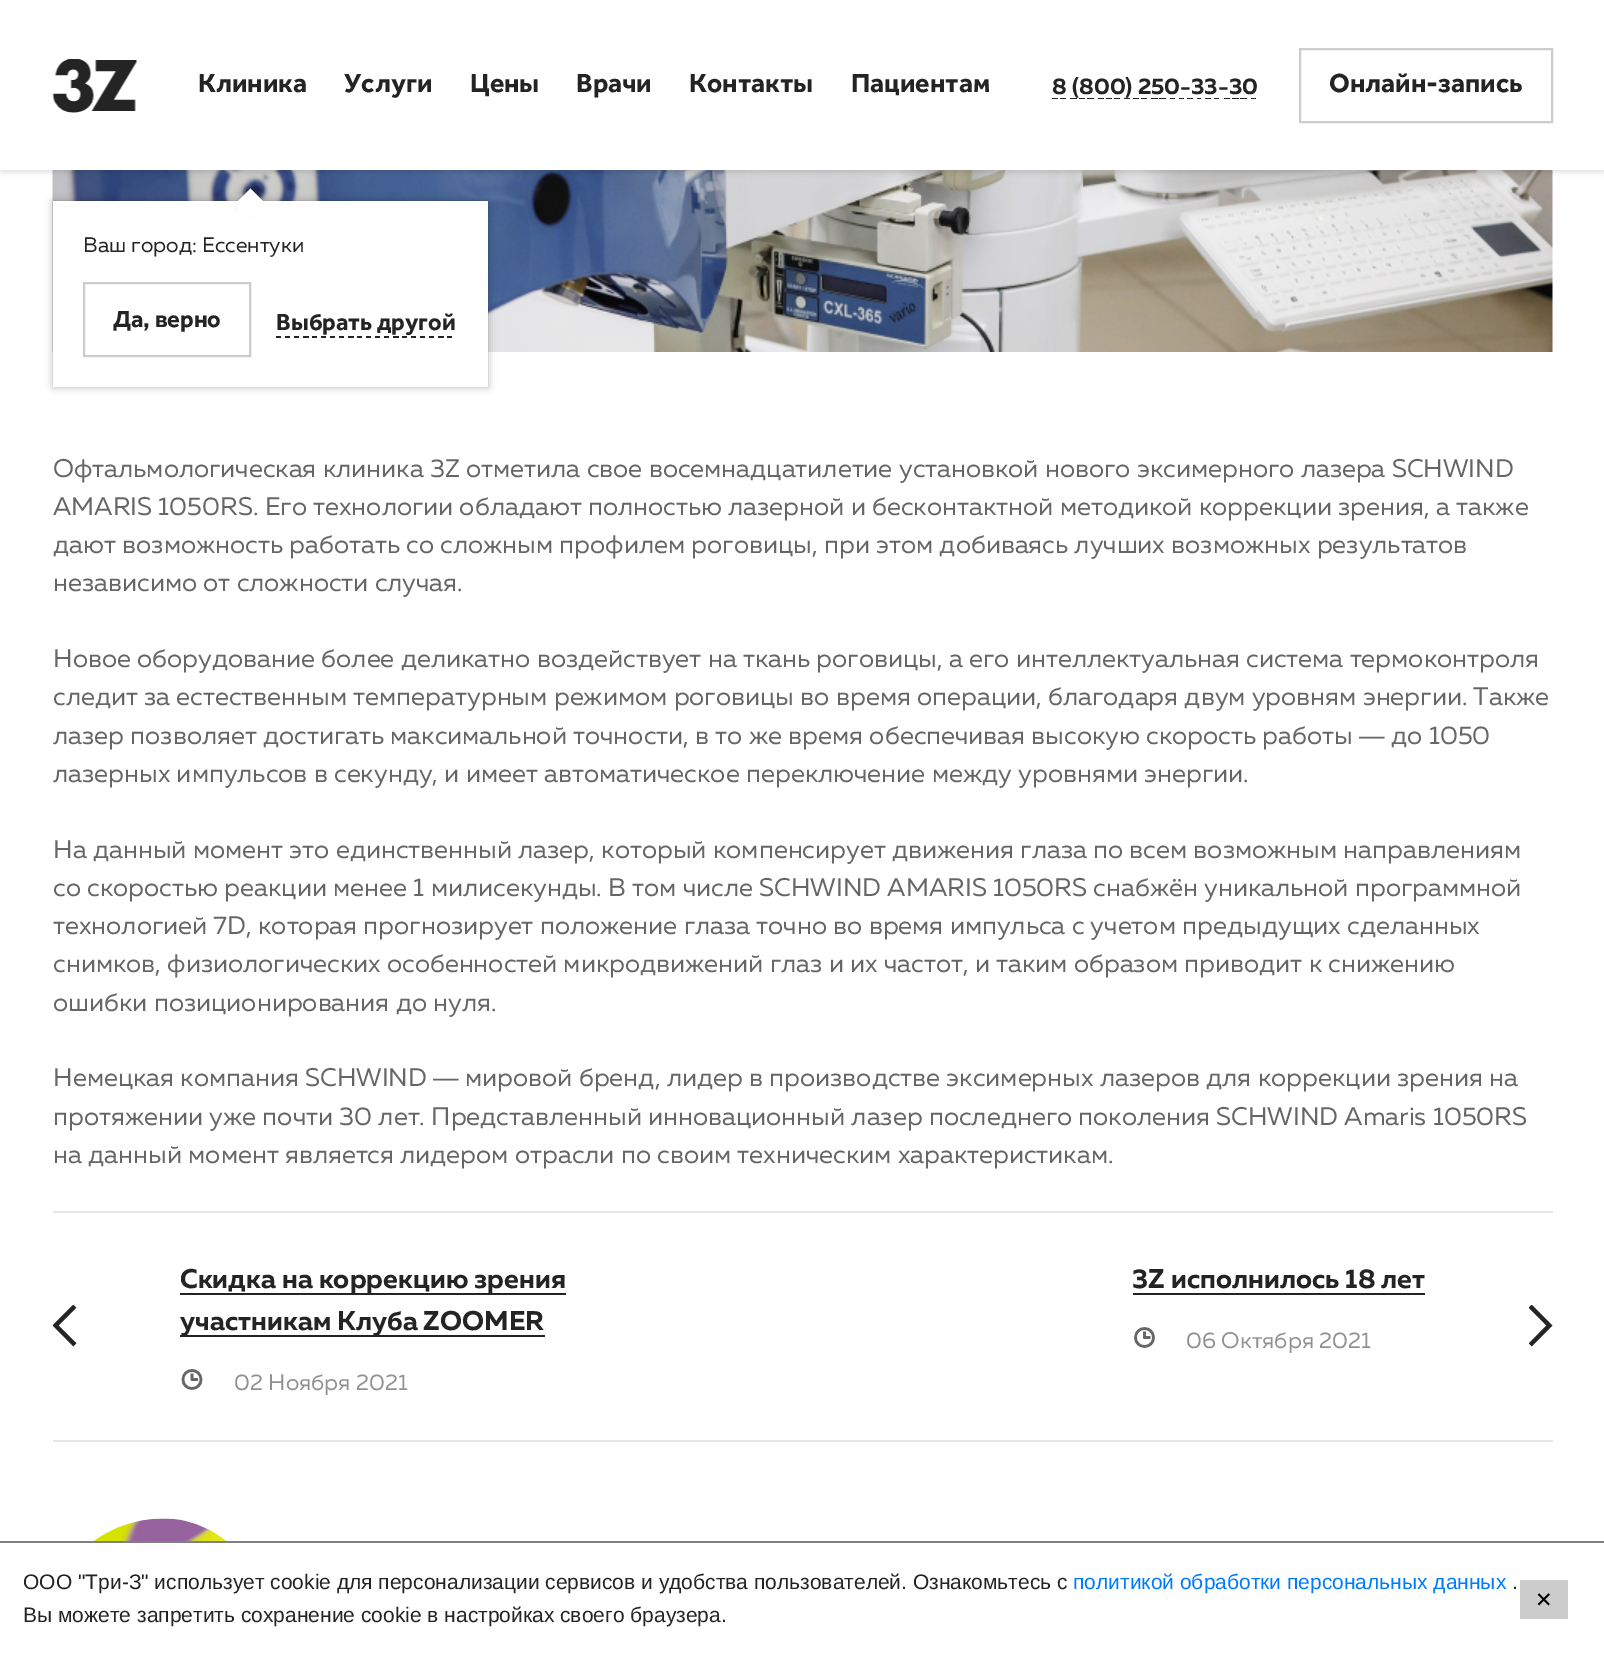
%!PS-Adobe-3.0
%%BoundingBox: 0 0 1604 1654
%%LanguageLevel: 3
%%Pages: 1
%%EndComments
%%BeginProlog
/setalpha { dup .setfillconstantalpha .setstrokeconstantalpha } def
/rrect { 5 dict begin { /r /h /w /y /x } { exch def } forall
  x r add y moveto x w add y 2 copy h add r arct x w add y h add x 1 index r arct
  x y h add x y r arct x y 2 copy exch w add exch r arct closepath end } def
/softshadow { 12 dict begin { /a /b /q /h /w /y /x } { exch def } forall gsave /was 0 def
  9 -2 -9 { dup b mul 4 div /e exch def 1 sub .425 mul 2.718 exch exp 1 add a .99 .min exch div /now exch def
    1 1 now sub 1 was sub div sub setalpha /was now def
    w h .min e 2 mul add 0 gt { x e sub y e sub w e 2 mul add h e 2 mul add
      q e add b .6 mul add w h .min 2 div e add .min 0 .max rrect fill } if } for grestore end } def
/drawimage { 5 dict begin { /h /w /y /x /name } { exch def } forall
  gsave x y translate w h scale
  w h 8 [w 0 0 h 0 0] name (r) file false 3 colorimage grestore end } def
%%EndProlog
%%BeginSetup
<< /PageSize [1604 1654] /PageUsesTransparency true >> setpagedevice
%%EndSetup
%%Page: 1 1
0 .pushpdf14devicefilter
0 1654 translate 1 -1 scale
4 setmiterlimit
1 setgray
0 0 1604 1654 rectfill
0.8 setgray
2 setlinewidth
1300 49 252 73 rectstroke
(images/2.raw) 52 170 1501 182 drawimage
gsave
newpath 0 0 moveto 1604 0 lineto 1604 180 lineto 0 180 lineto closepath 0 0 moveto 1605 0 lineto 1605 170 lineto 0 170 lineto closepath eoclip newpath
0 setgray
0 3 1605 170 0 2 0.1 softshadow
grestore
(images/1.raw) 52 59 85 54 drawimage
gsave newpath 1052 98 moveto 1257 98 lineto 1257 99 lineto 1052 99 lineto closepath clip newpath
<< /ShadingType 2 /ColorSpace /DeviceRGB /Coords [1052 98 1259 98] /Extend [true true] /Function << /FunctionType 3 /Domain [0 1] /Functions [<< /FunctionType 2 /Domain [0 1] /C0 [0.141 0.141 0.141] /C1 [0.141 0.141 0.141] /N 1 >> << /FunctionType 2 /Domain [0 1] /C0 [1 1 1] /C1 [1 1 1] /N 1 >> << /FunctionType 2 /Domain [0 1] /C0 [0.141 0.141 0.141] /C1 [0.141 0.141 0.141] /N 1 >> << /FunctionType 2 /Domain [0 1] /C0 [1 1 1] /C1 [1 1 1] /N 1 >> << /FunctionType 2 /Domain [0 1] /C0 [0.141 0.141 0.141] /C1 [0.141 0.141 0.141] /N 1 >> << /FunctionType 2 /Domain [0 1] /C0 [1 1 1] /C1 [1 1 1] /N 1 >> << /FunctionType 2 /Domain [0 1] /C0 [0.141 0.141 0.141] /C1 [0.141 0.141 0.141] /N 1 >> << /FunctionType 2 /Domain [0 1] /C0 [1 1 1] /C1 [1 1 1] /N 1 >> << /FunctionType 2 /Domain [0 1] /C0 [0.141 0.141 0.141] /C1 [0.141 0.141 0.141] /N 1 >> << /FunctionType 2 /Domain [0 1] /C0 [1 1 1] /C1 [1 1 1] /N 1 >> << /FunctionType 2 /Domain [0 1] /C0 [0.141 0.141 0.141] /C1 [0.141 0.141 0.141] /N 1 >> << /FunctionType 2 /Domain [0 1] /C0 [1 1 1] /C1 [1 1 1] /N 1 >> << /FunctionType 2 /Domain [0 1] /C0 [0.141 0.141 0.141] /C1 [0.141 0.141 0.141] /N 1 >> << /FunctionType 2 /Domain [0 1] /C0 [1 1 1] /C1 [1 1 1] /N 1 >> << /FunctionType 2 /Domain [0 1] /C0 [0.141 0.141 0.141] /C1 [0.141 0.141 0.141] /N 1 >> << /FunctionType 2 /Domain [0 1] /C0 [1 1 1] /C1 [1 1 1] /N 1 >> << /FunctionType 2 /Domain [0 1] /C0 [0.141 0.141 0.141] /C1 [0.141 0.141 0.141] /N 1 >> << /FunctionType 2 /Domain [0 1] /C0 [1 1 1] /C1 [1 1 1] /N 1 >> << /FunctionType 2 /Domain [0 1] /C0 [0.141 0.141 0.141] /C1 [0.141 0.141 0.141] /N 1 >> << /FunctionType 2 /Domain [0 1] /C0 [1 1 1] /C1 [1 1 1] /N 1 >> << /FunctionType 2 /Domain [0 1] /C0 [0.141 0.141 0.141] /C1 [0.141 0.141 0.141] /N 1 >> << /FunctionType 2 /Domain [0 1] /C0 [1 1 1] /C1 [1 1 1] /N 1 >> << /FunctionType 2 /Domain [0 1] /C0 [0.141 0.141 0.141] /C1 [0.141 0.141 0.141] /N 1 >> << /FunctionType 2 /Domain [0 1] /C0 [1 1 1] /C1 [1 1 1] /N 1 >> << /FunctionType 2 /Domain [0 1] /C0 [0.141 0.141 0.141] /C1 [0.141 0.141 0.141] /N 1 >> << /FunctionType 2 /Domain [0 1] /C0 [1 1 1] /C1 [1 1 1] /N 1 >> << /FunctionType 2 /Domain [0 1] /C0 [0.141 0.141 0.141] /C1 [0.141 0.141 0.141] /N 1 >> << /FunctionType 2 /Domain [0 1] /C0 [1 1 1] /C1 [1 1 1] /N 1 >> << /FunctionType 2 /Domain [0 1] /C0 [0.141 0.141 0.141] /C1 [0.141 0.141 0.141] /N 1 >> << /FunctionType 2 /Domain [0 1] /C0 [1 1 1] /C1 [1 1 1] /N 1 >> << /FunctionType 2 /Domain [0 1] /C0 [0.141 0.141 0.141] /C1 [0.141 0.141 0.141] /N 1 >> << /FunctionType 2 /Domain [0 1] /C0 [1 1 1] /C1 [1 1 1] /N 1 >> << /FunctionType 2 /Domain [0 1] /C0 [0.141 0.141 0.141] /C1 [0.141 0.141 0.141] /N 1 >> << /FunctionType 2 /Domain [0 1] /C0 [1 1 1] /C1 [1 1 1] /N 1 >> << /FunctionType 2 /Domain [0 1] /C0 [0.141 0.141 0.141] /C1 [0.141 0.141 0.141] /N 1 >> << /FunctionType 2 /Domain [0 1] /C0 [1 1 1] /C1 [1 1 1] /N 1 >> << /FunctionType 2 /Domain [0 1] /C0 [0.141 0.141 0.141] /C1 [0.141 0.141 0.141] /N 1 >> << /FunctionType 2 /Domain [0 1] /C0 [1 1 1] /C1 [1 1 1] /N 1 >> << /FunctionType 2 /Domain [0 1] /C0 [0.141 0.141 0.141] /C1 [0.141 0.141 0.141] /N 1 >> << /FunctionType 2 /Domain [0 1] /C0 [1 1 1] /C1 [1 1 1] /N 1 >> << /FunctionType 2 /Domain [0 1] /C0 [0.141 0.141 0.141] /C1 [0.141 0.141 0.141] /N 1 >> << /FunctionType 2 /Domain [0 1] /C0 [1 1 1] /C1 [1 1 1] /N 1 >> << /FunctionType 2 /Domain [0 1] /C0 [0.141 0.141 0.141] /C1 [0.141 0.141 0.141] /N 1 >> << /FunctionType 2 /Domain [0 1] /C0 [1 1 1] /C1 [1 1 1] /N 1 >> << /FunctionType 2 /Domain [0 1] /C0 [0.141 0.141 0.141] /C1 [0.141 0.141 0.141] /N 1 >> << /FunctionType 2 /Domain [0 1] /C0 [1 1 1] /C1 [1 1 1] /N 1 >>] /Bounds [0.03 0.04 0.07 0.09 0.12 0.13 0.16 0.17 0.2 0.22 0.25 0.26 0.29 0.3 0.33 0.35 0.38 0.39 0.42 0.43 0.46 0.48 0.51 0.52 0.55 0.57 0.59 0.61 0.64 0.65 0.68 0.7 0.72 0.74 0.77 0.78 0.81 0.83 0.86 0.87 0.9 0.91 0.94 0.96 0.99] /Encode [0 1 0 1 0 1 0 1 0 1 0 1 0 1 0 1 0 1 0 1 0 1 0 1 0 1 0 1 0 1 0 1 0 1 0 1 0 1 0 1 0 1 0 1 0 1 0 1 0 1 0 1 0 1 0 1 0 1 0 1 0 1 0 1 0 1 0 1 0 1 0 1 0 1 0 1 0 1 0 1 0 1 0 1 0 1 0 1 0 1 0 1] >> >> shfill grestore
0 setgray
53 201 435 186 0 4 0.3 softshadow
1 setgray
53 201 435 186 rectfill
0 setgray
242 192 18 18 0 4 0.3 softshadow
1 setgray
newpath 250.5 188.5 moveto 263 201 lineto 250.5 214 lineto 238 201 lineto closepath fill
237 201 30 16 rectfill
0.8 setgray
84 283 166 73 rectstroke
gsave newpath 276 336 moveto 456 336 lineto 456 338 lineto 276 338 lineto closepath clip newpath
<< /ShadingType 2 /ColorSpace /DeviceRGB /Coords [276 337 456 337] /Extend [true true] /Function << /FunctionType 3 /Domain [0 1] /Functions [<< /FunctionType 2 /Domain [0 1] /C0 [0.141 0.141 0.141] /C1 [0.141 0.141 0.141] /N 1 >> << /FunctionType 2 /Domain [0 1] /C0 [1 1 1] /C1 [1 1 1] /N 1 >> << /FunctionType 2 /Domain [0 1] /C0 [0.141 0.141 0.141] /C1 [0.141 0.141 0.141] /N 1 >> << /FunctionType 2 /Domain [0 1] /C0 [1 1 1] /C1 [1 1 1] /N 1 >> << /FunctionType 2 /Domain [0 1] /C0 [0.141 0.141 0.141] /C1 [0.141 0.141 0.141] /N 1 >> << /FunctionType 2 /Domain [0 1] /C0 [1 1 1] /C1 [1 1 1] /N 1 >> << /FunctionType 2 /Domain [0 1] /C0 [0.141 0.141 0.141] /C1 [0.141 0.141 0.141] /N 1 >> << /FunctionType 2 /Domain [0 1] /C0 [1 1 1] /C1 [1 1 1] /N 1 >> << /FunctionType 2 /Domain [0 1] /C0 [0.141 0.141 0.141] /C1 [0.141 0.141 0.141] /N 1 >> << /FunctionType 2 /Domain [0 1] /C0 [1 1 1] /C1 [1 1 1] /N 1 >> << /FunctionType 2 /Domain [0 1] /C0 [0.141 0.141 0.141] /C1 [0.141 0.141 0.141] /N 1 >> << /FunctionType 2 /Domain [0 1] /C0 [1 1 1] /C1 [1 1 1] /N 1 >> << /FunctionType 2 /Domain [0 1] /C0 [0.141 0.141 0.141] /C1 [0.141 0.141 0.141] /N 1 >> << /FunctionType 2 /Domain [0 1] /C0 [1 1 1] /C1 [1 1 1] /N 1 >> << /FunctionType 2 /Domain [0 1] /C0 [0.141 0.141 0.141] /C1 [0.141 0.141 0.141] /N 1 >> << /FunctionType 2 /Domain [0 1] /C0 [1 1 1] /C1 [1 1 1] /N 1 >> << /FunctionType 2 /Domain [0 1] /C0 [0.141 0.141 0.141] /C1 [0.141 0.141 0.141] /N 1 >> << /FunctionType 2 /Domain [0 1] /C0 [1 1 1] /C1 [1 1 1] /N 1 >> << /FunctionType 2 /Domain [0 1] /C0 [0.141 0.141 0.141] /C1 [0.141 0.141 0.141] /N 1 >> << /FunctionType 2 /Domain [0 1] /C0 [1 1 1] /C1 [1 1 1] /N 1 >> << /FunctionType 2 /Domain [0 1] /C0 [0.141 0.141 0.141] /C1 [0.141 0.141 0.141] /N 1 >> << /FunctionType 2 /Domain [0 1] /C0 [1 1 1] /C1 [1 1 1] /N 1 >> << /FunctionType 2 /Domain [0 1] /C0 [0.141 0.141 0.141] /C1 [0.141 0.141 0.141] /N 1 >> << /FunctionType 2 /Domain [0 1] /C0 [1 1 1] /C1 [1 1 1] /N 1 >> << /FunctionType 2 /Domain [0 1] /C0 [0.141 0.141 0.141] /C1 [0.141 0.141 0.141] /N 1 >> << /FunctionType 2 /Domain [0 1] /C0 [1 1 1] /C1 [1 1 1] /N 1 >> << /FunctionType 2 /Domain [0 1] /C0 [0.141 0.141 0.141] /C1 [0.141 0.141 0.141] /N 1 >> << /FunctionType 2 /Domain [0 1] /C0 [1 1 1] /C1 [1 1 1] /N 1 >> << /FunctionType 2 /Domain [0 1] /C0 [0.141 0.141 0.141] /C1 [0.141 0.141 0.141] /N 1 >> << /FunctionType 2 /Domain [0 1] /C0 [1 1 1] /C1 [1 1 1] /N 1 >> << /FunctionType 2 /Domain [0 1] /C0 [0.141 0.141 0.141] /C1 [0.141 0.141 0.141] /N 1 >> << /FunctionType 2 /Domain [0 1] /C0 [1 1 1] /C1 [1 1 1] /N 1 >> << /FunctionType 2 /Domain [0 1] /C0 [0.141 0.141 0.141] /C1 [0.141 0.141 0.141] /N 1 >> << /FunctionType 2 /Domain [0 1] /C0 [1 1 1] /C1 [1 1 1] /N 1 >> << /FunctionType 2 /Domain [0 1] /C0 [0.141 0.141 0.141] /C1 [0.141 0.141 0.141] /N 1 >> << /FunctionType 2 /Domain [0 1] /C0 [1 1 1] /C1 [1 1 1] /N 1 >> << /FunctionType 2 /Domain [0 1] /C0 [0.141 0.141 0.141] /C1 [0.141 0.141 0.141] /N 1 >> << /FunctionType 2 /Domain [0 1] /C0 [1 1 1] /C1 [1 1 1] /N 1 >> << /FunctionType 2 /Domain [0 1] /C0 [0.141 0.141 0.141] /C1 [0.141 0.141 0.141] /N 1 >> << /FunctionType 2 /Domain [0 1] /C0 [1 1 1] /C1 [1 1 1] /N 1 >>] /Bounds [0.03 0.05 0.08 0.1 0.13 0.15 0.18 0.2 0.23 0.25 0.28 0.3 0.33 0.35 0.38 0.4 0.43 0.45 0.48 0.5 0.53 0.55 0.58 0.6 0.63 0.65 0.68 0.7 0.73 0.75 0.78 0.8 0.83 0.85 0.88 0.9 0.93 0.95 0.98] /Encode [0 1 0 1 0 1 0 1 0 1 0 1 0 1 0 1 0 1 0 1 0 1 0 1 0 1 0 1 0 1 0 1 0 1 0 1 0 1 0 1 0 1 0 1 0 1 0 1 0 1 0 1 0 1 0 1 0 1 0 1 0 1 0 1 0 1 0 1 0 1 0 1 0 1 0 1 0 1 0 1] >> >> shfill grestore
0.902 setgray
53 1211 1500 2 rectfill
53 1440 1500 2 rectfill
0.141 setgray
180 1293 386 2 rectfill
(images/3.raw) 53 1305 24 42 drawimage
180 1335 365 2 rectfill
(images/4.raw) 181 1369 22 21 drawimage
1133 1293 292 2 rectfill
(images/5.raw) 1134 1327 21 21 drawimage
(images/6.raw) 1529 1305 24 42 drawimage
(images/7.raw) 94 1518 133 23 drawimage
0.502 setgray
0 1541 1604 2 rectfill
0.8 setgray
1520 1580 48 39 rectfill
/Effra-Bold [27 0 0 -27 0 0] selectfont
0.141 setgray
198 92 moveto (Клиника) show
344 92 moveto (Услуги) show
470 92 moveto (Цены) show
576 92 moveto (Врачи) show
689 92 moveto (Контакты) show
851 92 moveto (Пациентам) show
/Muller-Bold [22.5 0 0 -22.5 0 0] selectfont
1052 94 moveto (8 \(800\) 250-33-30) show
/Effra-Bold [27 0 0 -27 0 0] selectfont
1329 92 moveto (Онлайн-запись) show
/Muller-Regular [21 0 0 -21 0 0] selectfont
83 252 moveto (Ваш город: Ессентуки) show
/Effra-Bold [24 0 0 -24 0 0] selectfont
113 327 moveto (Да, верно) show
276 330 moveto (Выбрать другой) show
/Muller-Regular [25.5 0 0 -25.5 0 0] selectfont
0.4 setgray
53 477 moveto (Офтальмологическая клиника 3Z отметила свое восемнадцатилетие установкой нового эксимерного лазера SCHWIND) show
53 515 moveto (AMARIS 1050RS. Его технологии обладают полностью лазерной и бесконтактной методикой коррекции зрения, а также) show
53 553 moveto (дают возможность работать со сложным профилем роговицы, при этом добиваясь лучших возможных результатов) show
53 591 moveto (независимо от сложности случая.) show
53 667 moveto (Новое оборудование более деликатно воздействует на ткань роговицы, а его интеллектуальная система термоконтроля) show
53 705 moveto (следит за естественным температурным режимом роговицы во время операции, благодаря двум уровням энергии. Также) show
53 744 moveto (лазер позволяет достигать максимальной точности, в то же время обеспечивая высокую скорость работы) show
/LiberationSans-Regular [25.5 0 0 -25.5 0 0] selectfont
1359 744 moveto (—) show
/Muller-Regular [25.5 0 0 -25.5 0 0] selectfont
1391 744 moveto (до 1050) show
53 782 moveto (лазерных импульсов в секунду, и имеет автоматическое переключение между уровнями энергии.) show
53 858 moveto (На данный момент это единственный лазер, который компенсирует движения глаза по всем возможным направлениям) show
53 896 moveto (со скоростью реакции менее 1 милисекунды. В том числе SCHWIND AMARIS 1050RS снабжён уникальной программной) show
53 934 moveto (технологией 7D, которая прогнозирует положение глаза точно во время импульса с учетом предыдущих сделанных) show
53 972 moveto (снимков, физиологических особенностей микродвижений глаз и их частот, и таким образом приводит к снижению) show
53 1011 moveto (ошибки позиционирования до нуля.) show
53 1086 moveto (Немецкая компания SCHWIND) show
/LiberationSans-Regular [25.5 0 0 -25.5 0 0] selectfont
433 1086 moveto (—) show
/Muller-Regular [25.5 0 0 -25.5 0 0] selectfont
465 1086 moveto (мировой бренд, лидер в производстве эксимерных лазеров для коррекции зрения на) show
53 1125 moveto (протяжении уже почти 30 лет. Представленный инновационный лазер последнего поколения SCHWIND Amaris 1050RS) show
53 1163 moveto (на данный момент является лидером отрасли по своим техническим характеристикам.) show
/Muller-Bold [27 0 0 -27 0 0] selectfont
0.141 setgray
180 1288 moveto (Скидка на коррекцию зрения) show
180 1330 moveto (участникам Клуба ZOOMER) show
/Muller-Regular [22.5 0 0 -22.5 0 0] selectfont
0.569 setgray
234 1390 moveto (02 Ноября 2021) show
/Muller-Bold [27 0 0 -27 0 0] selectfont
0.141 setgray
1132 1288 moveto (3Z исполнилось 18 лет) show
/Muller-Regular [22.5 0 0 -22.5 0 0] selectfont
0.569 setgray
1186 1348 moveto (06 Октября 2021) show
/LiberationSans-Regular [21 0 0 -21 0 0] selectfont
0.141 setgray
23 1589 moveto (ООО "Три-З" использует cookie для персонализации сервисов и удобства пользователей. Ознакомьтесь с) show
0 0.482 1 setrgbcolor
1073 1589 moveto (политикой обработки персональных данных) show
0.141 setgray
1512 1589 moveto (.) show
23 1622 moveto (Вы можете запретить сохранение cookie в настройках своего браузера.) show
/DejaVuSans-Regular [21 0 0 -21 0 0] selectfont
0 setgray
1535 1607 moveto (✕) show
.poppdf14devicefilter showpage
%%EOF
